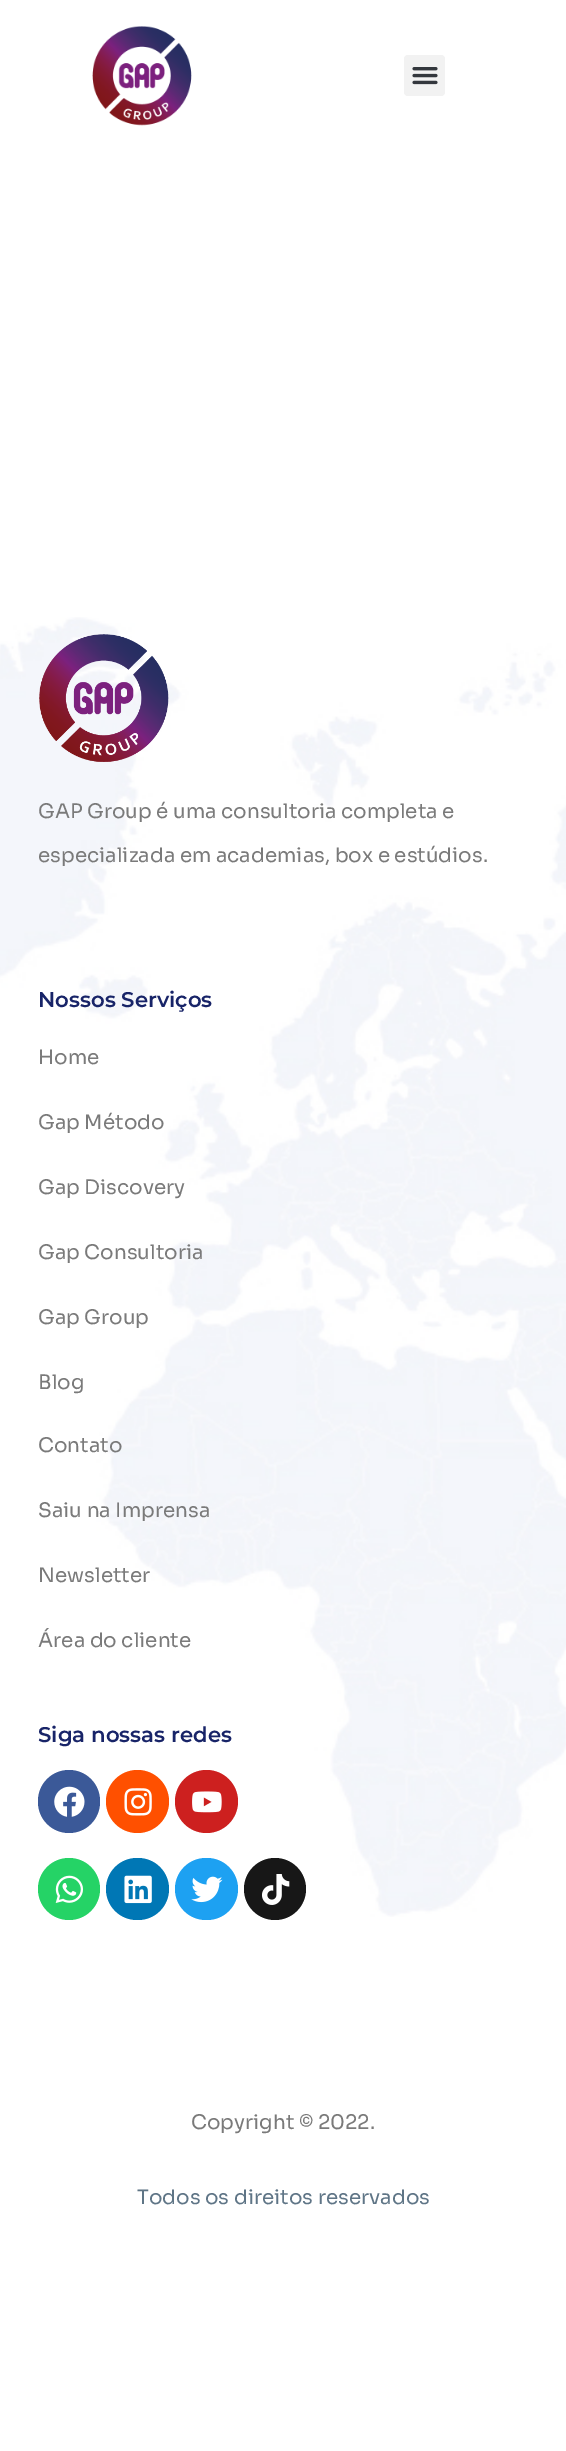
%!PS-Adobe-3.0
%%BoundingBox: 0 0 566 2451
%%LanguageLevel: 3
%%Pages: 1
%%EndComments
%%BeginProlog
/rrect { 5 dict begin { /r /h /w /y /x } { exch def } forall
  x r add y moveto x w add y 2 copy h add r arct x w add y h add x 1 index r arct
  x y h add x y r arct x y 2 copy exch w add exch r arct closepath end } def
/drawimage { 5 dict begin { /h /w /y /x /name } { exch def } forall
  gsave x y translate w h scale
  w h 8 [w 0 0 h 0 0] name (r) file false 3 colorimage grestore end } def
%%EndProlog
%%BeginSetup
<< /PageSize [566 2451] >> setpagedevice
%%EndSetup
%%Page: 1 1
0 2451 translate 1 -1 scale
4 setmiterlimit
1 setgray
0 0 566 2451 rectfill
(images/1.raw) 92 26 100 100 drawimage
0.949 setgray
404 55 41 41 4 rrect fill
(images/2.raw) 412 67 26 18 drawimage
(images/3.raw) 0 617 566 1300 drawimage
(images/4.raw) 39 634 130 128 drawimage
0.231 0.349 0.596 setrgbcolor
38 1770 62 63 31 rrect fill
(images/5.raw) 54 1786 31 31 drawimage
1 0.314 0 setrgbcolor
newpath 137.5 1801.5 31.5 0 360 arc closepath fill
(images/6.raw) 124 1788 28 28 drawimage
0.804 0.125 0.122 setrgbcolor
newpath 206.5 1801.5 31.5 0 360 arc closepath fill
(images/7.raw) 192 1791 30 22 drawimage
0.145 0.827 0.4 setrgbcolor
newpath 69 1889 31 0 360 arc closepath fill
(images/8.raw) 55 1875 28 28 drawimage
0 0.467 0.71 setrgbcolor
106 1858 63 62 31 rrect fill
(images/9.raw) 124 1875 28 29 drawimage
0.114 0.631 0.949 setrgbcolor
175 1858 63 62 31 rrect fill
(images/10.raw) 191 1876 32 27 drawimage
0.09 setgray
newpath 275 1889 31 0 360 arc closepath fill
(images/11.raw) 262 1874 28 31 drawimage
/Sora-Regular [20 0 0 -20 0 0] selectfont
0.478 setgray
38 818 moveto (GAP Group é uma consultoria completa e) show
38 862 moveto (especializada em academias, box e estúdios.) show
/Montserrat-SemiBold [21.25 0 0 -21.25 0 0] selectfont
0.094 0.141 0.408 setrgbcolor
38 1007 moveto (Nossos Serviços) show
/Sora-Regular [20 0 0 -20 0 0] selectfont
0.478 setgray
38 1064 moveto (Home) show
38 1129 moveto (Gap Método) show
38 1194 moveto (Gap Discovery) show
38 1259 moveto (Gap Consultoria) show
38 1324 moveto (Gap Group) show
38 1389 moveto (Blog) show
38 1452 moveto (Contato) show
38 1517 moveto (Saiu na Imprensa) show
38 1582 moveto (Newsletter) show
38 1647 moveto (Área do cliente) show
/Montserrat-SemiBold [21.25 0 0 -21.25 0 0] selectfont
0.094 0.141 0.408 setrgbcolor
38 1742 moveto (Siga nossas redes) show
/Sora-Regular [20 0 0 -20 0 0] selectfont
0.478 setgray
191 2129 moveto (Copyright © 2022.) show
0.373 0.459 0.525 setrgbcolor
137 2204 moveto (Todos os direitos reservados) show
showpage
%%EOF
